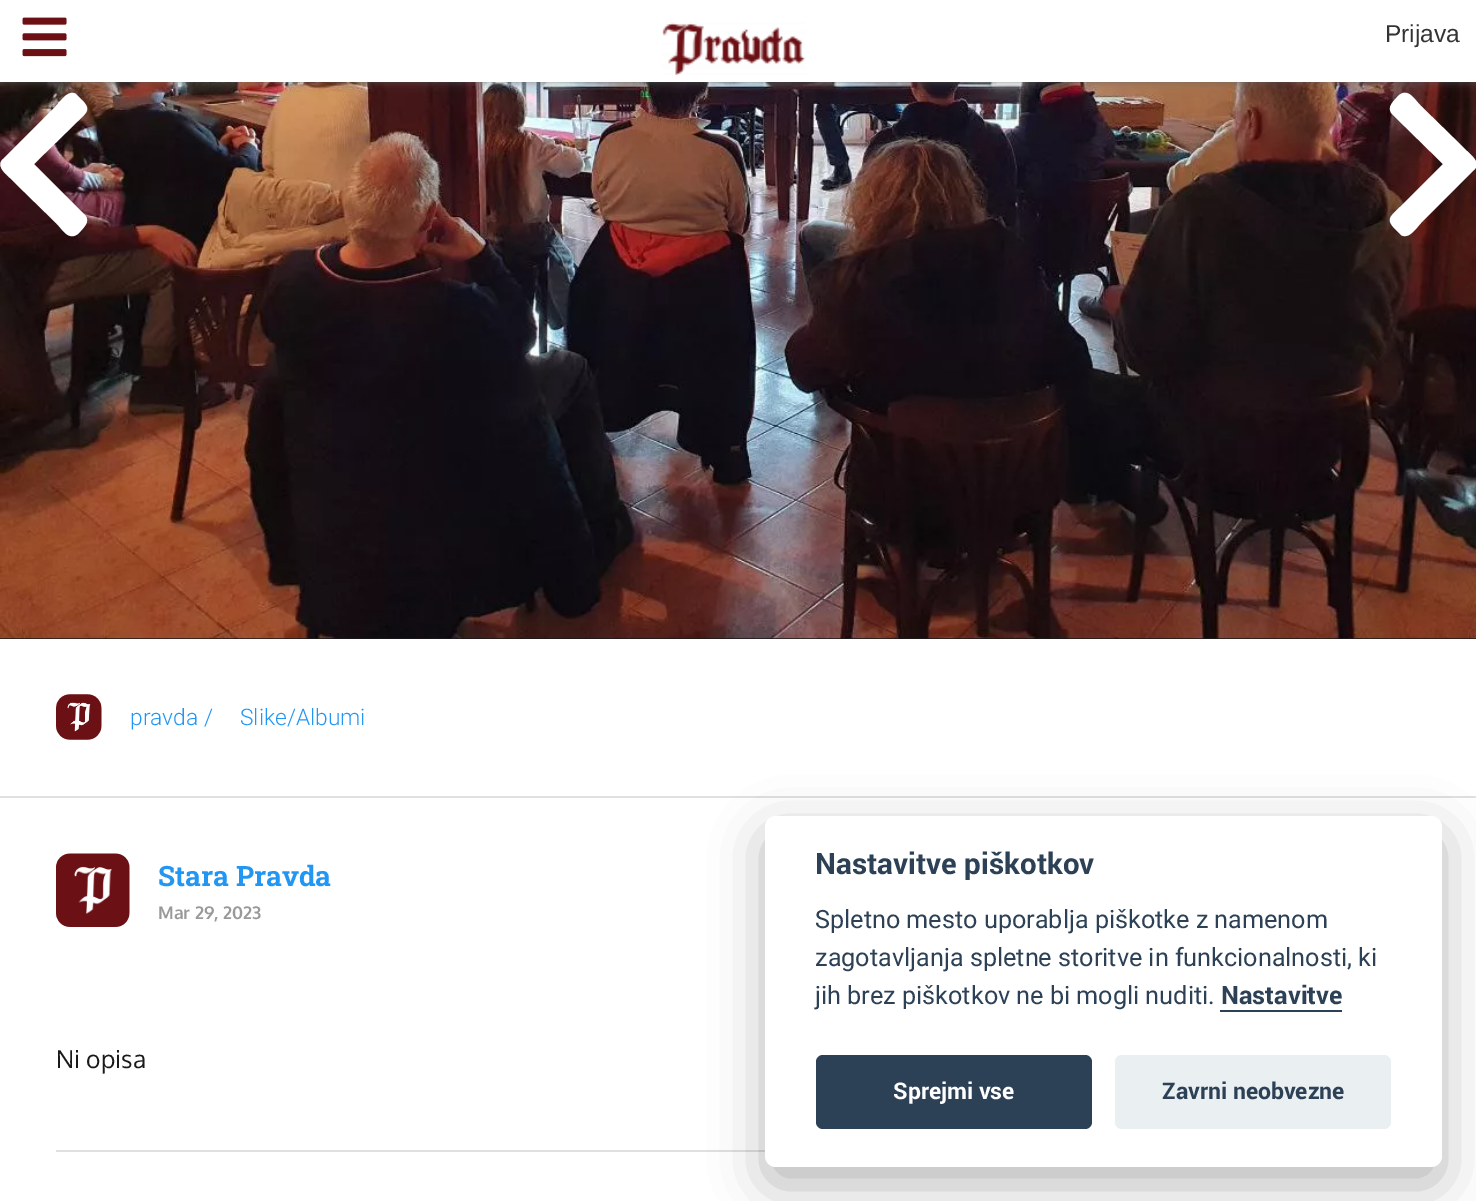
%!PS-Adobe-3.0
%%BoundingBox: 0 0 1476 1201
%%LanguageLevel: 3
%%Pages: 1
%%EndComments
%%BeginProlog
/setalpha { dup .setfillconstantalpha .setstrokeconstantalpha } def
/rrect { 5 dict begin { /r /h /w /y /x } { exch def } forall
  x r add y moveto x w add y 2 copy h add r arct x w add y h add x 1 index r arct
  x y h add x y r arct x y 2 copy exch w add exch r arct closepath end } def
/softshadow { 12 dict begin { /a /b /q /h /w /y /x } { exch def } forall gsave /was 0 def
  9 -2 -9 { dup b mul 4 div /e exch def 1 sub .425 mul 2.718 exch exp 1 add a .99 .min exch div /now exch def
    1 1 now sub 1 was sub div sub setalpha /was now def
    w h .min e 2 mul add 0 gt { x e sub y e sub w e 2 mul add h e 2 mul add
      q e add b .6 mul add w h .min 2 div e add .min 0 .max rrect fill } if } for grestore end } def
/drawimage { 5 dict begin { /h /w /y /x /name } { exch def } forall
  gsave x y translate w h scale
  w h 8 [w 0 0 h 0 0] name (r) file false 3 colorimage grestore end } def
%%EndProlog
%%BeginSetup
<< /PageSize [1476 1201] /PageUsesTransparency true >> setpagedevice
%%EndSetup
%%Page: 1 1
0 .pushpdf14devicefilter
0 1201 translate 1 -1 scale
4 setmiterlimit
0.094 setgray
0 0 1476 1201 rectfill
(images/3.raw) 0 82 1476 557 drawimage
1 setgray
newpath 3 159 moveto 56 106 lineto 60 102 68 89 76 94 curveto 81 99 lineto 92 110 87 112 77 122 curveto 34 164 lineto 85 215 lineto 91 222 83 228 79 233 curveto 69 242 63 230 56 223 curveto 13 181 lineto 10 177 -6 167 3 159 curveto closepath fill
newpath 1474 170 moveto 1421 223 lineto 1417 227 1409 240 1401 235 curveto 1396 230 lineto 1385 219 1390 217 1400 207 curveto 1443 164 lineto 1392 114 lineto 1386 107 1394 101 1398 96 curveto 1408 87 1414 99 1421 106 curveto 1464 148 lineto 1467 152 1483 162 1474 170 curveto closepath fill
0.392 setgray
0 0 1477 82 0 4.5 0.7 softshadow
1 setgray
0 0 1476 82 rectfill
(images/1.raw) 22 17 45 40 drawimage
(images/2.raw) 662 22 144 53 drawimage
0 639 1476 157 rectfill
0.878 setgray
0 796 1476 2 rectfill
(images/4.raw) 55 694 47 46 drawimage
1 setgray
0 798 1476 403 rectfill
(images/5.raw) 55 853 75 74 drawimage
0.878 setgray
56 1150 709 2 rectfill
0.008 0.008 0.012 setrgbcolor
765 833 677 352 11 26 0.28 softshadow
1 setgray
765 816 677 351 11 rrect fill
0.176 0.255 0.337 setrgbcolor
1220 1010 122 2 rectfill
816 1055 276 74 7 rrect fill
0.918 0.937 0.949 setrgbcolor
1115 1055 276 74 7 rrect fill
/LiberationSans-Regular [24.5 0 0 -24.5 0 0] selectfont
0.2 setgray
1385 42 moveto (Prijava) show
/Roboto-Light [22.75 0 0 -22.75 0 0] selectfont
0.129 0.588 0.953 setrgbcolor
130 725 moveto (pravda /) show
240 725 moveto (Slike/Albumi) show
/RobotoSlab-Bold [28 0 0 -28 0 0] selectfont
158 886 moveto (Stara Pravda) show
/Oxygen-Bold [17.5 0 0 -17.5 0 0] selectfont
0.6 setgray
158 919 moveto (Mar 29, 2023) show
/Oxygen-Regular [24.5 0 0 -24.5 0 0] selectfont
0.102 setgray
56 1068 moveto (Ni opisa) show
/Roboto-Bold [29.5 0 0 -29.5 0 0] selectfont
0.176 0.255 0.337 setrgbcolor
815 874 moveto (Nastavitve piškotkov) show
/Roboto-Regular [25.2 0 0 -25.2 0 0] selectfont
815 928 moveto (Spletno mesto uporablja piškotke z namenom) show
815 966 moveto (zagotavljanja spletne storitve in funkcionalnosti, ki) show
815 1004 moveto (jih brez piškotkov ne bi mogli nuditi.) show
/Roboto-Bold [25.2 0 0 -25.2 0 0] selectfont
1221 1004 moveto (Nastavitve) show
/Roboto-Bold [23 0 0 -23 0 0] selectfont
1 setgray
893 1099 moveto (Sprejmi vse) show
0.176 0.255 0.337 setrgbcolor
1162 1099 moveto (Zavrni neobvezne) show
.poppdf14devicefilter showpage
%%EOF
